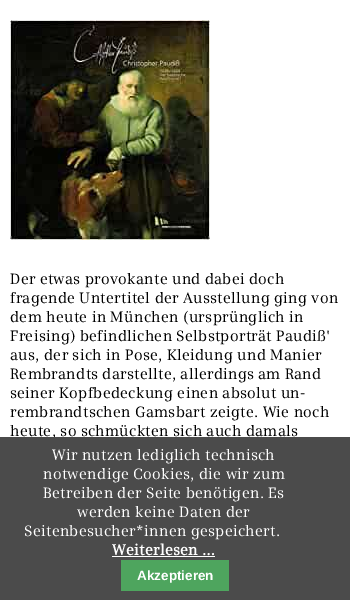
%!PS-Adobe-3.0
%%BoundingBox: 0 0 350 600
%%LanguageLevel: 3
%%Pages: 1
%%EndComments
%%BeginProlog
/drawimage { 5 dict begin { /h /w /y /x /name } { exch def } forall
  gsave x y translate w h scale
  w h 8 [w 0 0 h 0 0] name (r) file false 3 colorimage grestore end } def
%%EndProlog
%%BeginSetup
<< /PageSize [350 600] >> setpagedevice
%%EndSetup
%%Page: 1 1
0 600 translate 1 -1 scale
4 setmiterlimit
1 setgray
0 0 350 600 rectfill
(images/1.raw) 10 20 200 220 drawimage
/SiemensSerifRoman-Regular [15 0 0 -15 0 0] selectfont
0 setgray
10 284 moveto 0.3 0 (Der etwas provokante und dabei doch) ashow
10 303 moveto 0.3 0 (fragende Untertitel der Ausstellung ging von) ashow
10 322 moveto 0.3 0 (dem heute in München \(ursprünglich in) ashow
10 341 moveto 0.3 0 (Freising\) befindlichen Selbstporträt Paudiß') ashow
10 360 moveto 0.3 0 (aus, der sich in Pose, Kleidung und Manier) ashow
10 379 moveto 0.3 0 (Rembrandts darstellte, allerdings am Rand) ashow
10 398 moveto 0.3 0 (seiner Kopfbedeckung einen absolut un-) ashow
10 417 moveto 0.3 0 (rembrandtschen Gamsbart zeigte. Wie noch) ashow
10 436 moveto 0.3 0 (heute, so schmückten sich auch damals) ashow
0.294 setgray
0 437 350 163 rectfill
1 setgray
52 460 moveto 0.3 0 (Wir nutzen lediglich technisch) ashow
43 479 moveto 0.3 0 (notwendige Cookies, die wir zum) ashow
43 498 moveto 0.3 0 (Betreiben der Seite benötigen. Es) ashow
77 517 moveto 0.3 0 (werden keine Daten der) ashow
24 536 moveto 0.3 0 (Seitenbesucher*innen gespeichert.) ashow
/SiemensSerifRoman-Bold [15 0 0 -15 0 0] selectfont
112 555 moveto 0.3 0 (Weiterlesen …) ashow
112 556 103 1 rectfill
0.306 0.647 0.369 setrgbcolor
121 560 108 31 rectfill
/LiberationSans-Bold [13.5 0 0 -13.5 0 0] selectfont
1 setgray
137 580 moveto (Akzeptieren) show
showpage
%%EOF
